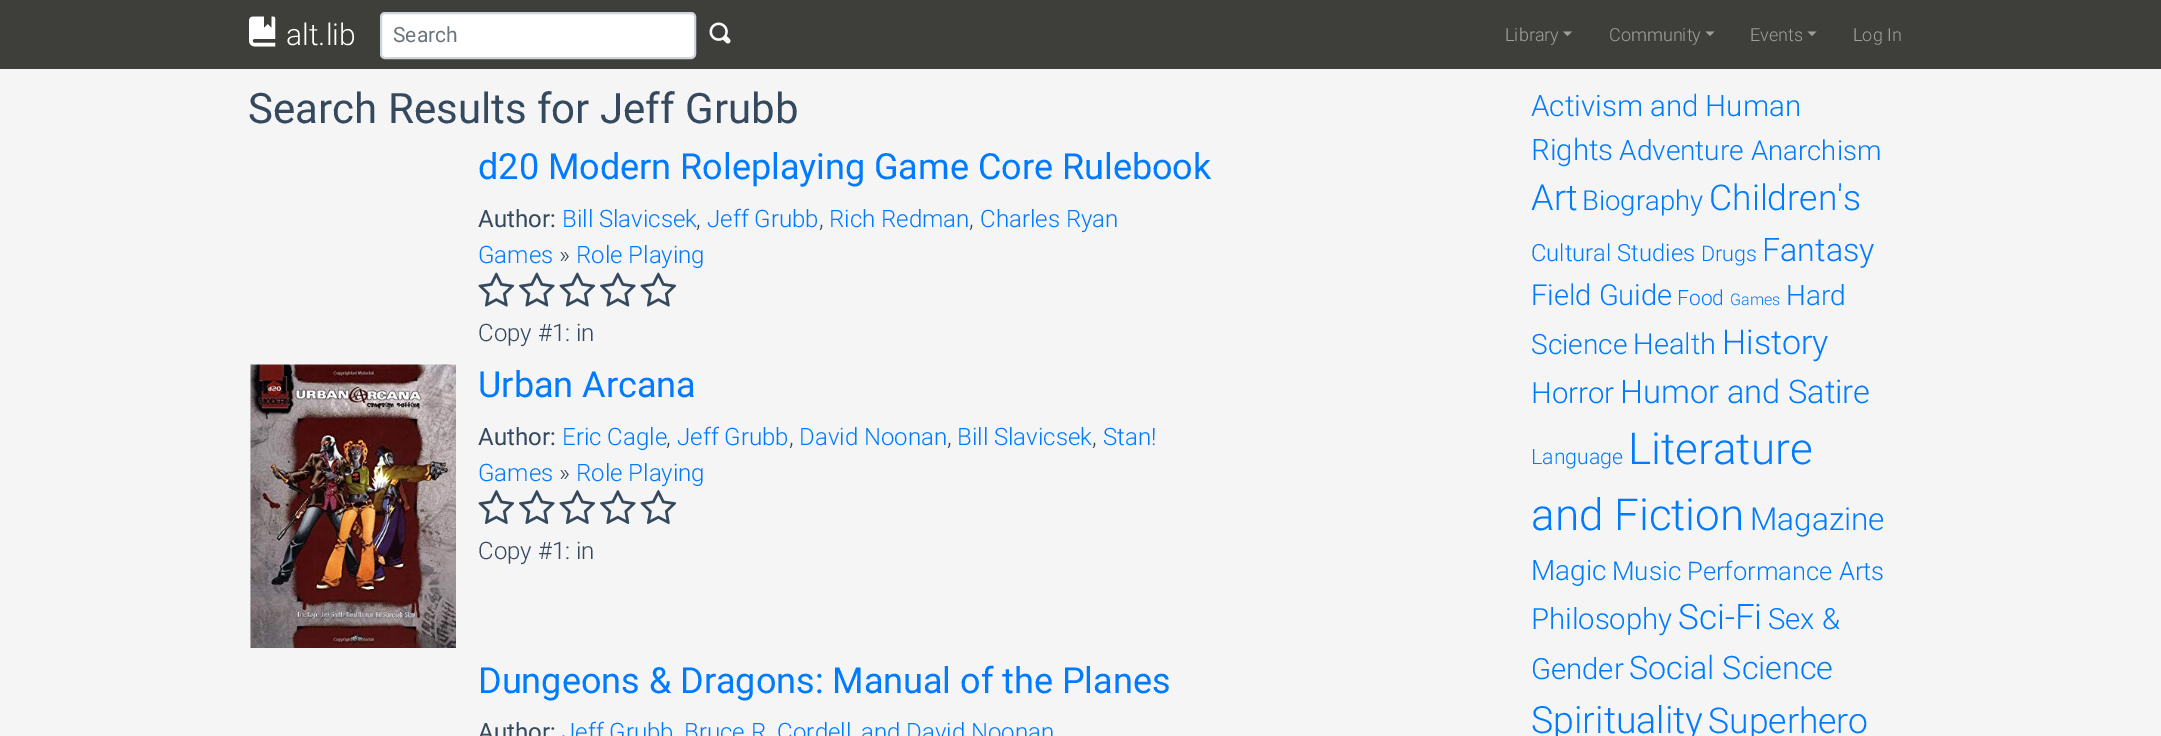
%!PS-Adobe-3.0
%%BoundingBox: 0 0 2161 736
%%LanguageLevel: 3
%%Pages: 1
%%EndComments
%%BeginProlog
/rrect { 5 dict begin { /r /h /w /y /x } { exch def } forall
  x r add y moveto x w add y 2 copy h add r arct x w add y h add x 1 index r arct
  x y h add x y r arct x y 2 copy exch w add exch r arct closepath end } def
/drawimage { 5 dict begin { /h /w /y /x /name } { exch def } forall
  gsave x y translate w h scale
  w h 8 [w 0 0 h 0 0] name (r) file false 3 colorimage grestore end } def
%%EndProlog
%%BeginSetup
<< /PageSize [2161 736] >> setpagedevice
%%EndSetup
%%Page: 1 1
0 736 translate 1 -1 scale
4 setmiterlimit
0.961 setgray
0 0 2161 736 rectfill
0.243 0.247 0.227 setrgbcolor
0 0 2161 69 rectfill
(images/1.raw) 249 16 27 31 drawimage
1 setgray
381 13 314 45 4 rrect gsave fill grestore
0.808 0.831 0.855 setrgbcolor
2 setlinewidth
stroke
(images/2.raw) 709 22 22 22 drawimage
0.624 0.624 0.616 setrgbcolor
newpath 1563 31.5 moveto 1572 31.5 lineto 1567.5 36 lineto closepath fill
newpath 1705.5 31.5 moveto 1714.5 31.5 lineto 1710 36 lineto closepath fill
newpath 1807.5 31.5 moveto 1816.5 31.5 lineto 1812 36 lineto closepath fill
(images/3.raw) 478 272 37 35 drawimage
(images/4.raw) 519 272 36 35 drawimage
(images/3.raw) 559 272 37 35 drawimage
(images/4.raw) 600 272 36 35 drawimage
(images/3.raw) 640 272 37 35 drawimage
(images/5.raw) 250 364 206 284 drawimage
(images/6.raw) 478 490 37 34 drawimage
(images/7.raw) 519 490 36 34 drawimage
(images/6.raw) 559 490 37 34 drawimage
(images/7.raw) 600 490 36 34 drawimage
(images/6.raw) 640 490 37 34 drawimage
/Roboto-Light [30 0 0 -30 0 0] selectfont
1 setgray
286 45 moveto (alt.lib) show
/Roboto-Regular [21 0 0 -21 0 0] selectfont
0.424 0.459 0.49 setrgbcolor
393 42 moveto (Search) show
/Roboto-Light [18 0 0 -18 0 0] selectfont
0.624 0.624 0.616 setrgbcolor
1505 41 moveto (Library) show
1609 41 moveto (Community) show
1750 41 moveto (Events) show
1853 41 moveto (Log In) show
/Roboto-Regular [42 0 0 -42 0 0] selectfont
0.204 0.286 0.369 setrgbcolor
248 123 moveto (Search Results for Jeff Grubb) show
/Roboto-Regular [36 0 0 -36 0 0] selectfont
0 0.482 1 setrgbcolor
478 179 moveto (d20 Modern Roleplaying Game Core Rulebook) show
/Roboto-Regular [24 0 0 -24 0 0] selectfont
0.204 0.286 0.369 setrgbcolor
478 227 moveto (Author:) show
/Roboto-Light [24 0 0 -24 0 0] selectfont
0 0.482 1 setrgbcolor
562 227 moveto (Bill Slavicsek) show
0.204 0.286 0.369 setrgbcolor
696 227 moveto (,) show
0 0.482 1 setrgbcolor
707 227 moveto (Jeff Grubb) show
0.204 0.286 0.369 setrgbcolor
819 227 moveto (,) show
0 0.482 1 setrgbcolor
829 227 moveto (Rich Redman) show
0.204 0.286 0.369 setrgbcolor
969 227 moveto (,) show
0 0.482 1 setrgbcolor
980 227 moveto (Charles Ryan) show
478 263 moveto (Games) show
0.204 0.286 0.369 setrgbcolor
559 263 moveto (») show
0 0.482 1 setrgbcolor
576 263 moveto (Role Playing) show
0.204 0.286 0.369 setrgbcolor
478 341 moveto (Copy #1: in) show
/Roboto-Regular [36 0 0 -36 0 0] selectfont
0 0.482 1 setrgbcolor
478 397 moveto (Urban Arcana) show
/Roboto-Regular [24 0 0 -24 0 0] selectfont
0.204 0.286 0.369 setrgbcolor
478 445 moveto (Author:) show
/Roboto-Light [24 0 0 -24 0 0] selectfont
0 0.482 1 setrgbcolor
562 445 moveto (Eric Cagle) show
0.204 0.286 0.369 setrgbcolor
666 445 moveto (,) show
0 0.482 1 setrgbcolor
677 445 moveto (Jeff Grubb) show
0.204 0.286 0.369 setrgbcolor
789 445 moveto (,) show
0 0.482 1 setrgbcolor
799 445 moveto (David Noonan) show
0.204 0.286 0.369 setrgbcolor
947 445 moveto (,) show
0 0.482 1 setrgbcolor
957 445 moveto (Bill Slavicsek) show
0.204 0.286 0.369 setrgbcolor
1092 445 moveto (,) show
0 0.482 1 setrgbcolor
1103 445 moveto (Stan!) show
478 481 moveto (Games) show
0.204 0.286 0.369 setrgbcolor
559 481 moveto (») show
0 0.482 1 setrgbcolor
576 481 moveto (Role Playing) show
0.204 0.286 0.369 setrgbcolor
478 559 moveto (Copy #1: in) show
/Roboto-Regular [36 0 0 -36 0 0] selectfont
0 0.482 1 setrgbcolor
478 693 moveto (Dungeons & Dragons: Manual of the Planes) show
/Roboto-Regular [24 0 0 -24 0 0] selectfont
0.204 0.286 0.369 setrgbcolor
478 740 moveto (Author:) show
/Roboto-Light [24 0 0 -24 0 0] selectfont
0 0.482 1 setrgbcolor
562 740 moveto (Jeff Grubb) show
684 740 moveto (Bruce R. Cordell) show
861 740 moveto (and David Noonan) show
/Roboto-Light [29.5 0 0 -29.5 0 0] selectfont
1531 116 moveto (Activism and Human) show
1531 160 moveto (Rights) show
/Roboto-Light [28 0 0 -28 0 0] selectfont
1619 160 moveto (Adventure) show
/Roboto-Light [27.5 0 0 -27.5 0 0] selectfont
1751 160 moveto (Anarchism) show
/Roboto-Light [36 0 0 -36 0 0] selectfont
1531 210 moveto (Art) show
/Roboto-Light [27.5 0 0 -27.5 0 0] selectfont
1582 210 moveto (Biography) show
/Roboto-Light [35.5 0 0 -35.5 0 0] selectfont
1709 210 moveto (Children's) show
/Roboto-Light [23.75 0 0 -23.75 0 0] selectfont
1531 261 moveto (Cultural Studies) show
/Roboto-Light [21.5 0 0 -21.5 0 0] selectfont
1701 261 moveto (Drugs) show
/Roboto-Light [32.25 0 0 -32.25 0 0] selectfont
1762 261 moveto (Fantasy) show
/Roboto-Light [29 0 0 -29 0 0] selectfont
1531 305 moveto (Field Guide) show
/Roboto-Light [21 0 0 -21 0 0] selectfont
1677 305 moveto (Food) show
/Roboto-Light [16 0 0 -16 0 0] selectfont
1730 305 moveto (Games) show
/Roboto-Light [28 0 0 -28 0 0] selectfont
1786 305 moveto (Hard) show
1531 354 moveto (Science) show
/Roboto-Light [29 0 0 -29 0 0] selectfont
1633 354 moveto (Health) show
/Roboto-Light [34 0 0 -34 0 0] selectfont
1722 354 moveto (History) show
/Roboto-Light [29.25 0 0 -29.25 0 0] selectfont
1531 403 moveto (Horror) show
/Roboto-Light [32.5 0 0 -32.5 0 0] selectfont
1620 403 moveto (Humor and Satire) show
/Roboto-Light [21.25 0 0 -21.25 0 0] selectfont
1531 464 moveto (Language) show
/Roboto-Light [44 0 0 -44 0 0] selectfont
1628 464 moveto (Literature) show
1531 530 moveto (and Fiction) show
/Roboto-Light [31.5 0 0 -31.5 0 0] selectfont
1750 530 moveto (Magazine) show
/Roboto-Light [28 0 0 -28 0 0] selectfont
1531 580 moveto (Magic) show
/Roboto-Light [26 0 0 -26 0 0] selectfont
1612 580 moveto (Music) show
/Roboto-Light [25.5 0 0 -25.5 0 0] selectfont
1687 580 moveto (Performance Arts) show
/Roboto-Light [29.25 0 0 -29.25 0 0] selectfont
1531 629 moveto (Philosophy) show
/Roboto-Light [35 0 0 -35 0 0] selectfont
1678 629 moveto (Sci-Fi) show
/Roboto-Light [29.25 0 0 -29.25 0 0] selectfont
1768 629 moveto (Sex &) show
1531 679 moveto (Gender) show
/Roboto-Light [32.25 0 0 -32.25 0 0] selectfont
1629 679 moveto (Social Science) show
/Roboto-Light [37.5 0 0 -37.5 0 0] selectfont
1531 733 moveto (Spirituality) show
/Roboto-Light [35.5 0 0 -35.5 0 0] selectfont
1708 733 moveto (Superhero) show
showpage
%%EOF
